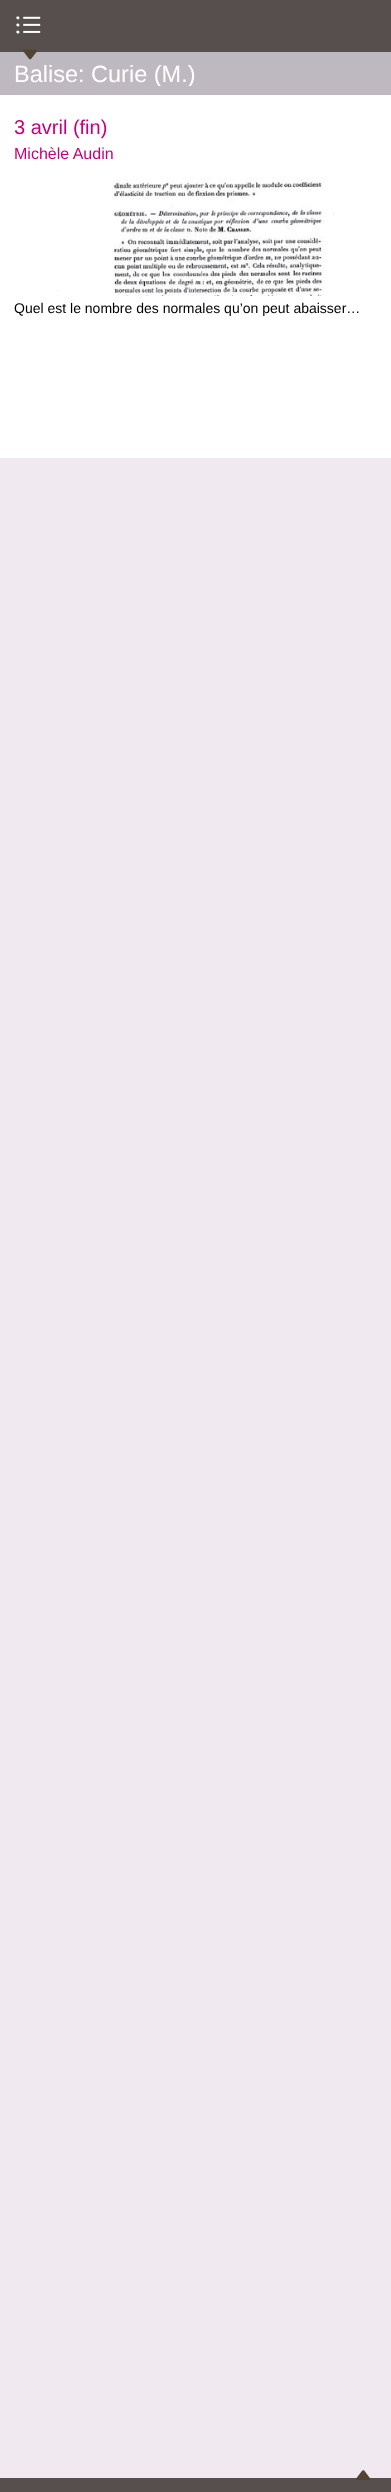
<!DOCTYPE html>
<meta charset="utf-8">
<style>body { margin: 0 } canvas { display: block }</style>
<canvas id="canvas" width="391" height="2492"></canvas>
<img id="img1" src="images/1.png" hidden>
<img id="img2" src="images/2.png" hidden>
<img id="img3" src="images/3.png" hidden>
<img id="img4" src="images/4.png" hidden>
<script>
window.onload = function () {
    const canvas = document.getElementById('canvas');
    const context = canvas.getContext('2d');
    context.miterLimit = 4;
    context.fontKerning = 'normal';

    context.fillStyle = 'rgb(240, 234, 240)';
    context.fillRect(0, 0, 391, 2492);
    context.fillStyle = 'rgb(87, 78, 78)';
    context.fillRect(0, 0, 391, 52);
    context.drawImage(document.getElementById('img1'), 16, 16, 25, 18);
    context.fillStyle = 'rgb(190, 184, 192)';
    context.fillRect(0, 52, 391, 43);
    context.drawImage(document.getElementById('img2'), 23, 49, 15, 11);
    context.fillStyle = 'rgb(255, 255, 255)';
    context.fillRect(0, 95, 391, 363);
    context.drawImage(document.getElementById('img3'), 57, 177, 278, 119);
    context.fillStyle = 'rgb(87, 78, 78)';
    context.fillRect(0, 2478, 391, 14);
    context.drawImage(document.getElementById('img4'), 356, 2470, 15, 10);
    context.save();
    context.beginPath();
    context.rect(14, 62, 355, 24);
    context.clip();
    context.font = '23.5px Liberation Sans';
    context.fillStyle = 'rgb(255, 255, 255)';
    context.fillText('Balise: Curie (M.)', 14, 82);
    context.restore();
    context.font = '20px Liberation Sans';
    context.fillStyle = 'rgb(200, 0, 120)';
    context.fillText('3 avril (fin)', 14, 134);
    context.font = '16px Liberation Sans';
    context.fillText('Michèle Audin', 14, 159);
    context.font = '14px Liberation Sans';
    context.fillStyle = 'rgb(0, 0, 0)';
    context.fillText('Quel est le nombre des normales qu’on peut abaisser…', 14, 313);
};
</script>
